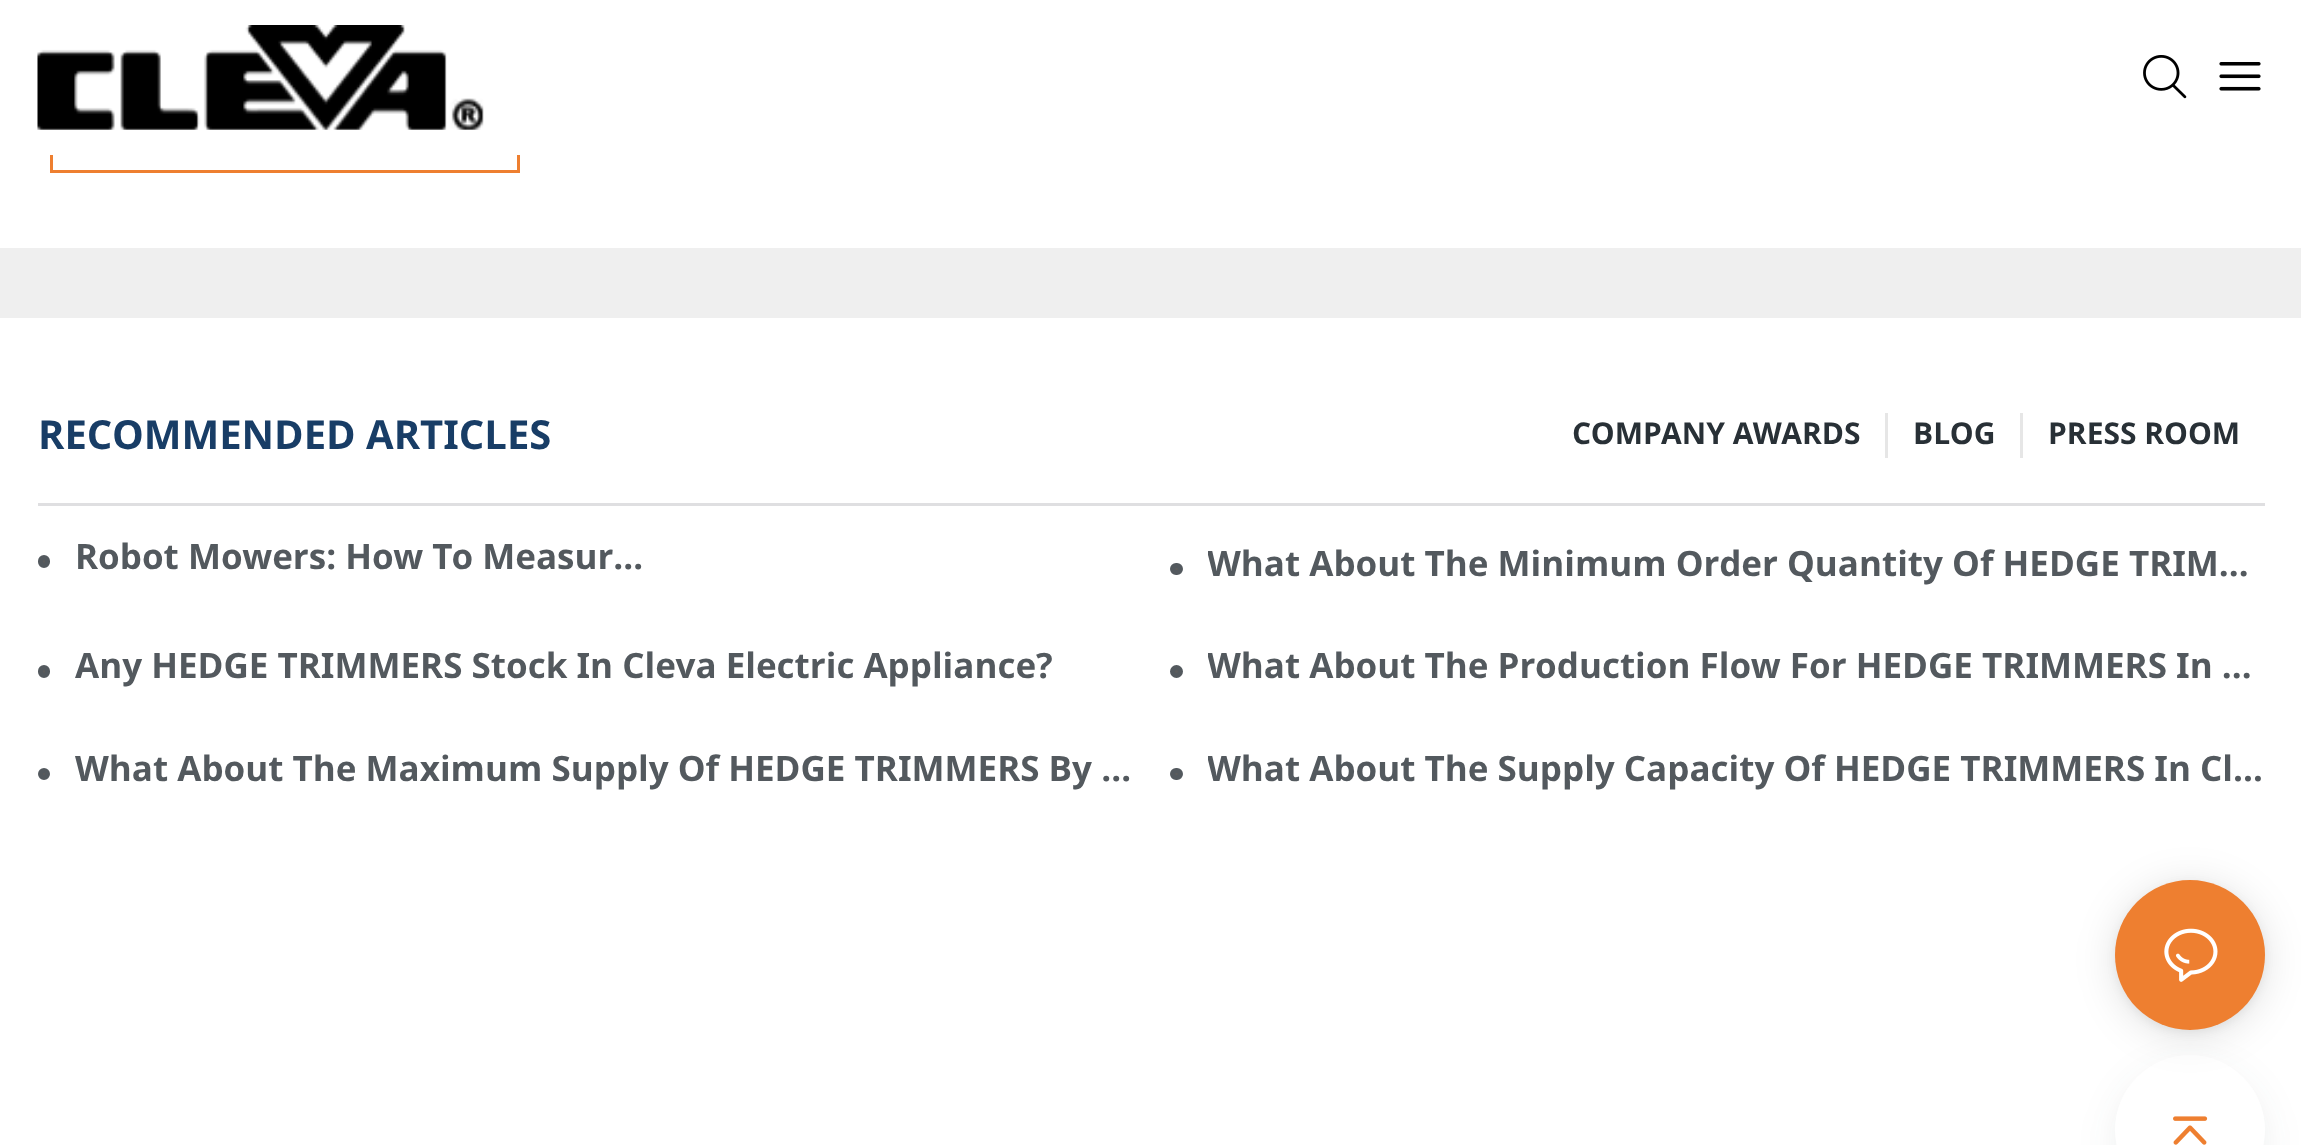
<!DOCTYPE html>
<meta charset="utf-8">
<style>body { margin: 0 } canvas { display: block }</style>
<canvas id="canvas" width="2301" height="1145"></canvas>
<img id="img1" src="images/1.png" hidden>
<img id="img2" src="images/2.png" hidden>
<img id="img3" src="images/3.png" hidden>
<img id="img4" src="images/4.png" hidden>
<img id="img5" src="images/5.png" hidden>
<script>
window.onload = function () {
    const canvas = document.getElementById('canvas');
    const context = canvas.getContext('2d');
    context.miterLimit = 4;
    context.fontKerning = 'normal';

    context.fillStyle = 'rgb(255, 255, 255)';
    context.fillRect(0, 0, 2301, 1145);
    context.strokeStyle = 'rgb(238, 127, 48)';
    context.lineWidth = 3;
    context.strokeRect(51.5, 59.5, 467, 112);
    context.fillRect(50, 58, 470, 97);
    context.drawImage(document.getElementById('img1'), 37, 25, 447, 105);
    context.drawImage(document.getElementById('img2'), 2143, 55, 44, 44);
    context.drawImage(document.getElementById('img3'), 2219, 62, 42, 29);
    context.fillStyle = 'rgb(239, 239, 239)';
    context.fillRect(0, 248, 2301, 70);
    context.fillStyle = 'rgb(223, 223, 225)';
    context.fillRect(38, 503, 2227, 3);
    context.fillStyle = 'rgb(230, 230, 230)';
    context.fillRect(1885, 413, 3, 45);
    context.fillRect(2020, 413, 3, 45);
    context.fillStyle = 'rgb(92, 92, 92)';
    context.beginPath();
    context.roundRect(40.5, 557.5, 7, 8, 3.5);
    context.fill();
    context.strokeStyle = 'rgb(83, 89, 94)';
    context.lineWidth = 5;
    context.stroke();
    context.beginPath();
    context.roundRect(1172.5, 565.5, 8, 7, 3.5);
    context.fill();
    context.stroke();
    context.beginPath();
    context.roundRect(40.5, 667.5, 7, 8, 3.5);
    context.fill();
    context.stroke();
    context.beginPath();
    context.arc(1176.5, 671.5, 4, 0, 2 * Math.PI);
    context.fill();
    context.stroke();
    context.beginPath();
    context.arc(44, 774, 3.5, 0, 2 * Math.PI);
    context.fill();
    context.stroke();
    context.beginPath();
    context.roundRect(1172.5, 770.5, 8, 7, 3.5);
    context.fill();
    context.stroke();
    context.fillStyle = 'rgba(40, 47, 54, 0.08)';
    context.filter = 'blur(19px)';
    context.beginPath();
    context.roundRect(2115, 1068, 150, 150, 75);
    context.fill();
    context.filter = 'none';
    context.fillStyle = 'rgb(255, 255, 255)';
    context.beginPath();
    context.arc(2190, 1130, 75, 0, 2 * Math.PI);
    context.fill();
    context.fillStyle = 'rgba(0, 0, 0, 0.12)';
    context.filter = 'blur(20px)';
    context.beginPath();
    context.roundRect(2115, 885, 150, 150, 75);
    context.fill();
    context.filter = 'none';
    context.fillStyle = 'rgba(0, 0, 0, 0.06)';
    context.filter = 'blur(5px)';
    context.beginPath();
    context.roundRect(2115, 883, 150, 150, 75);
    context.fill();
    context.filter = 'none';
    context.fillStyle = 'rgb(238, 127, 48)';
    context.beginPath();
    context.arc(2190, 955, 75, 0, 2 * Math.PI);
    context.fill();
    context.drawImage(document.getElementById('img4'), 2164, 928, 54, 54);
    context.drawImage(document.getElementById('img5'), 2173, 1116, 35, 29);
    context.font = 'bold 40px Noto Sans';
    context.fillStyle = 'rgb(24, 61, 102)';
    context.fillText('RECOMMENDED ARTICLES', 38, 449);
    context.font = 'bold 30px Noto Sans';
    context.fillStyle = 'rgb(40, 48, 54)';
    context.fillText('COMPANY AWARDS', 1572, 444);
    context.fillText('BLOG', 1913, 444);
    context.fillText('PRESS ROOM', 2048, 444);
    context.font = 'bold 35px Noto Sans';
    context.fillStyle = 'rgb(83, 89, 94)';
    context.fillText('Robot Mowers: How To Measur…', 75, 569);
    context.save();
    context.beginPath();
    context.rect(1208, 535, 1057, 53);
    context.clip();
    context.fillText('What About The Minimum Order Quantity Of HEDGE TRIM…', 1207, 576);
    context.restore();
    context.fillText('Any HEDGE TRIMMERS Stock In Cleva Electric Appliance?', 75, 678);
    context.save();
    context.beginPath();
    context.rect(1208, 638, 1057, 52);
    context.clip();
    context.fillText('What About The Production Flow For HEDGE TRIMMERS In …', 1207, 678);
    context.restore();
    context.fillText('What About The Maximum Supply Of HEDGE TRIMMERS By …', 75, 781);
    context.save();
    context.beginPath();
    context.rect(1208, 740, 1057, 53);
    context.clip();
    context.fillText('What About The Supply Capacity Of HEDGE TRIMMERS In Cl…', 1207, 781);
    context.restore();
};
</script>
